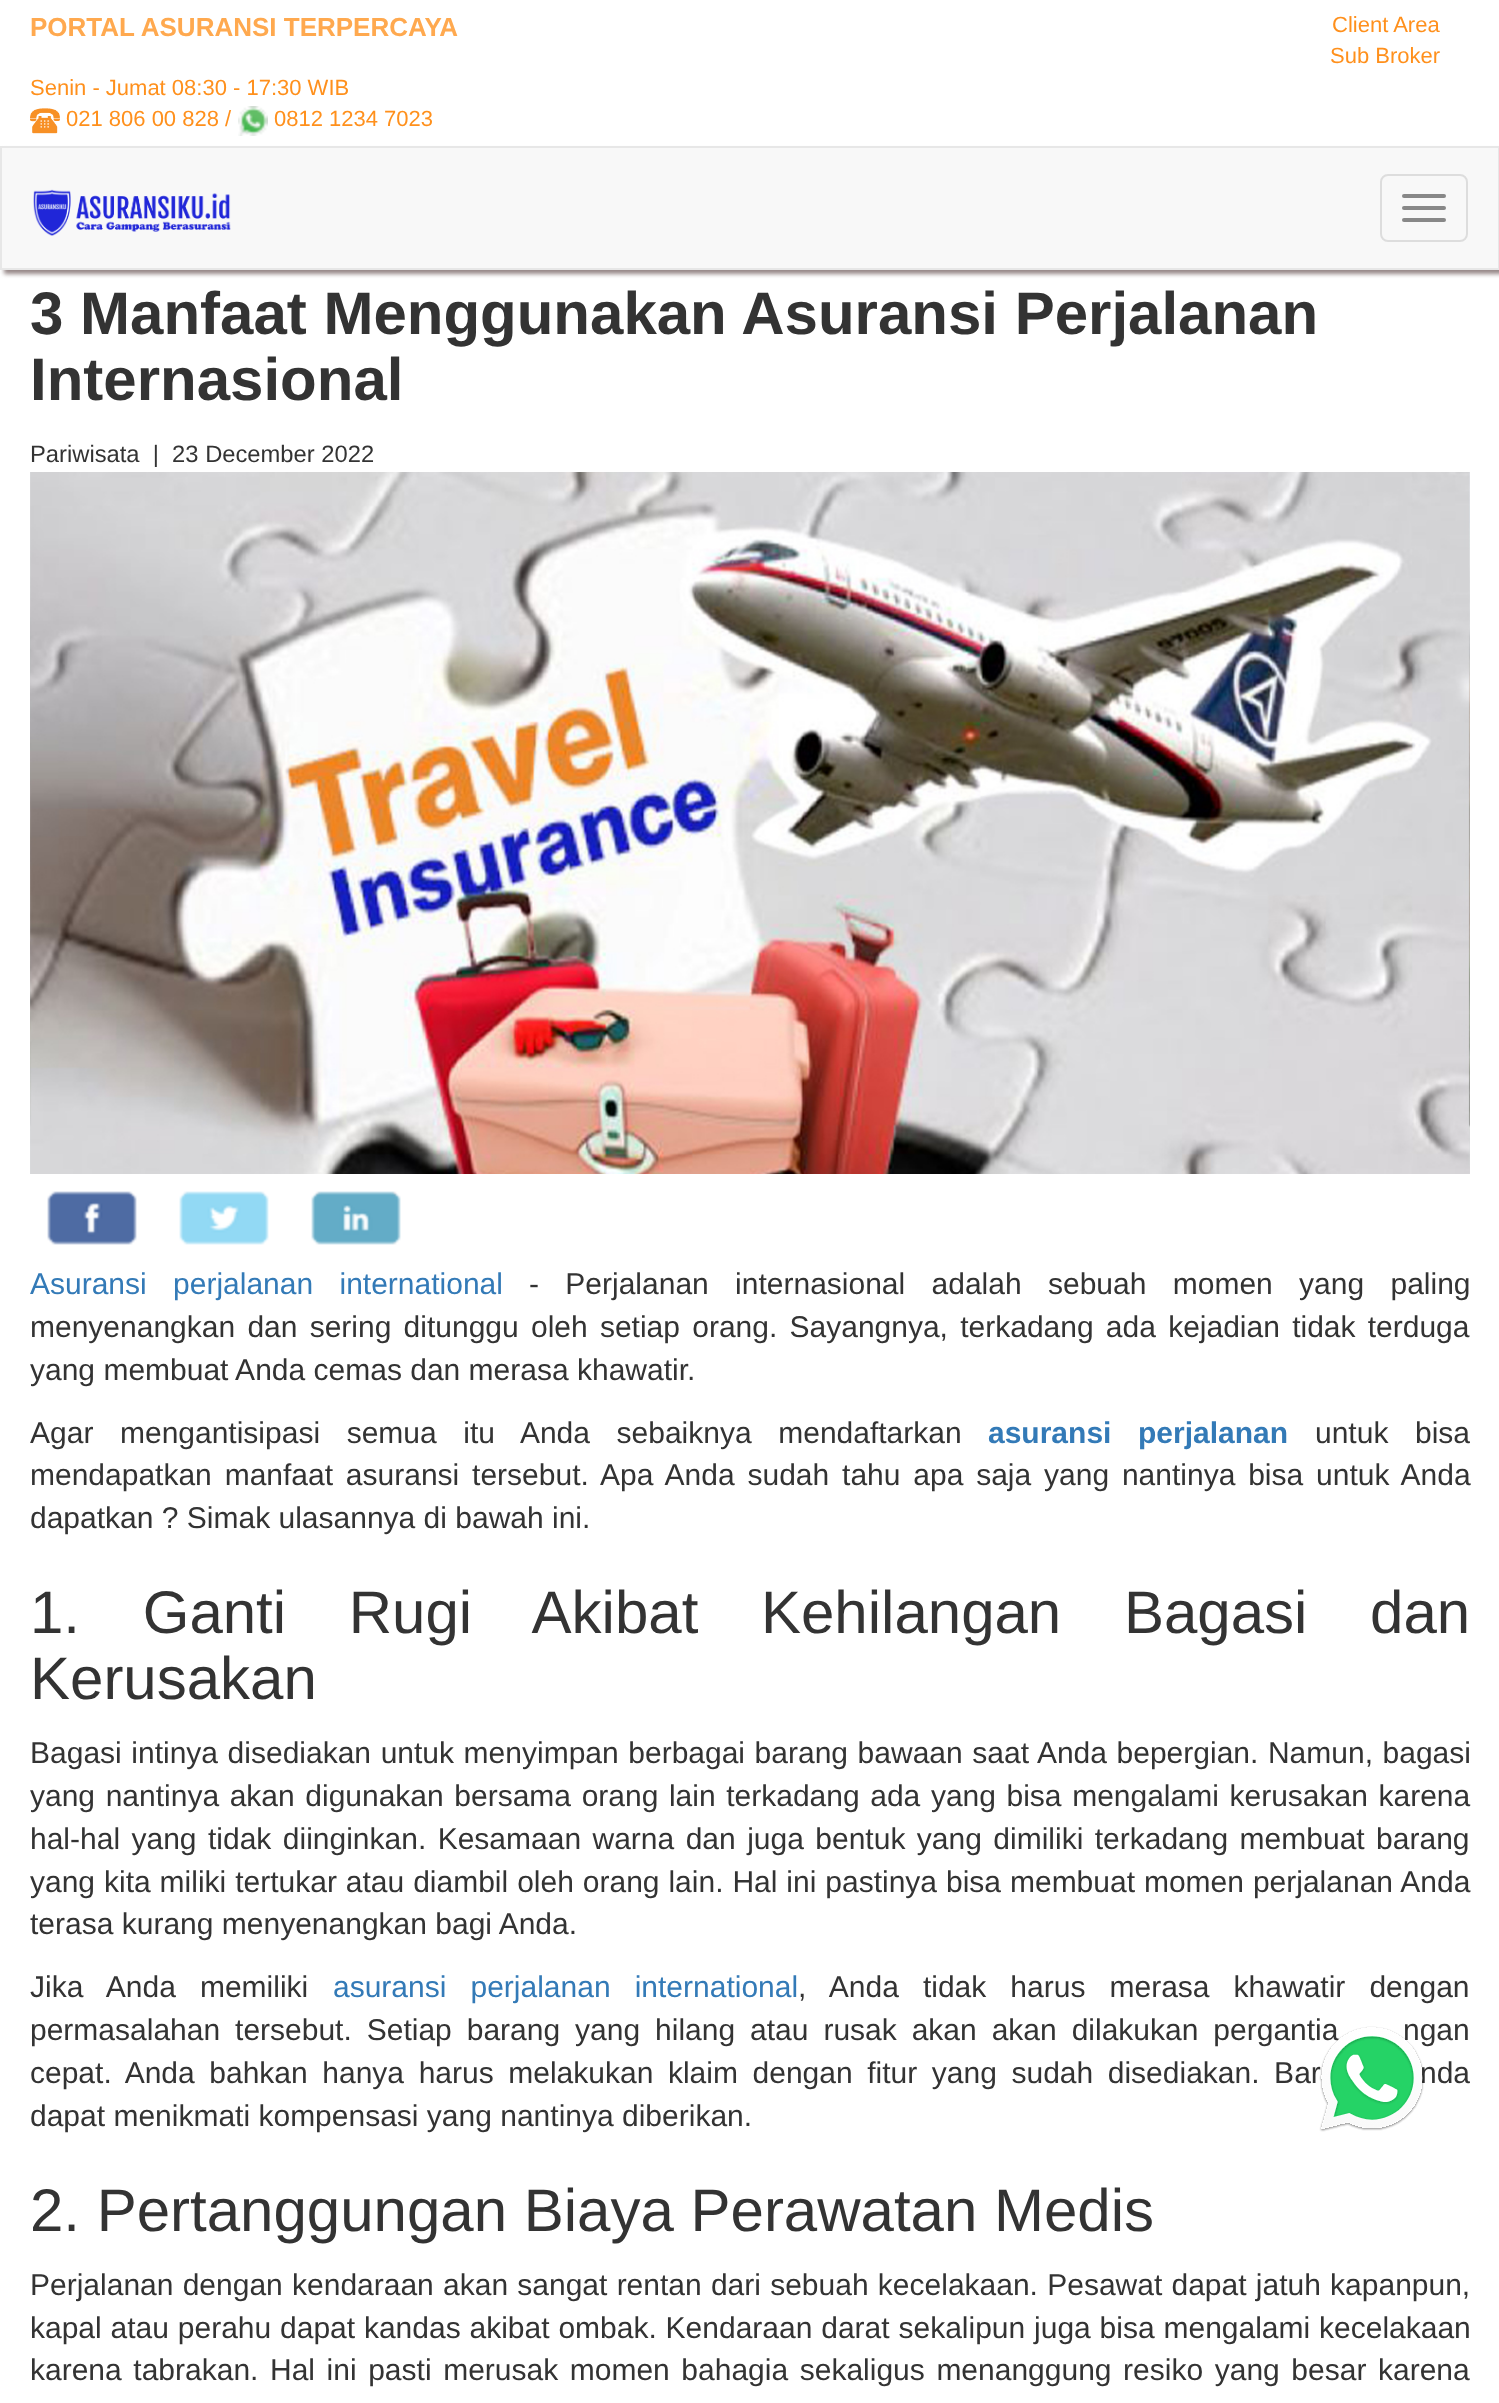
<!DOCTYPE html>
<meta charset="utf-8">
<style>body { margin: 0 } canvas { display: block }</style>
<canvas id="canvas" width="1499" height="2403"></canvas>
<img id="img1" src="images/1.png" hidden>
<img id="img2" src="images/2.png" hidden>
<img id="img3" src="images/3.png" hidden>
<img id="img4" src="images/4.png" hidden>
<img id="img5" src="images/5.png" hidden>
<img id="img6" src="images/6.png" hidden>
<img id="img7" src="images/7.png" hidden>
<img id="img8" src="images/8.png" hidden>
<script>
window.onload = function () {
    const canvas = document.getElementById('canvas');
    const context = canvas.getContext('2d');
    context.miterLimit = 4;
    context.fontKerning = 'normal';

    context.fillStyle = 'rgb(255, 255, 255)';
    context.fillRect(0, 0, 1499, 2403);
    context.drawImage(document.getElementById('img1'), 30, 108, 30, 26);
    context.drawImage(document.getElementById('img2'), 238, 106, 30, 30);
    context.fillStyle = 'rgb(150, 135, 135)';
    context.filter = 'blur(2px)';
    context.beginPath();
    context.rect(4, 150, 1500, 124);
    context.fill();
    context.filter = 'none';
    context.fillStyle = 'rgb(248, 248, 248)';
    context.beginPath();
    context.rect(1, 147, 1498, 122);
    context.fill();
    context.strokeStyle = 'rgb(231, 231, 231)';
    context.lineWidth = 2;
    context.stroke();
    context.drawImage(document.getElementById('img3'), 33, 189, 198, 47);
    context.beginPath();
    context.roundRect(1381, 175, 86, 66, 7);
    context.strokeStyle = 'rgb(221, 221, 221)';
    context.stroke();
    context.fillStyle = 'rgb(136, 136, 136)';
    context.beginPath();
    context.roundRect(1402, 194, 44, 4, 2);
    context.fill();
    context.beginPath();
    context.roundRect(1402, 206, 44, 4, 2);
    context.fill();
    context.beginPath();
    context.roundRect(1402, 218, 44, 4, 2);
    context.fill();
    context.drawImage(document.getElementById('img4'), 30, 472, 1440, 702);
    context.drawImage(document.getElementById('img5'), 47, 1191, 90, 54);
    context.drawImage(document.getElementById('img6'), 179, 1191, 90, 54);
    context.drawImage(document.getElementById('img7'), 311, 1191, 90, 54);
    context.font = 'bold 26px Liberation Sans';
    context.fillStyle = 'rgb(255, 169, 79)';
    context.fillText('PORTAL ASURANSI TERPERCAYA', 30, 36);
    context.font = '22px Liberation Sans';
    context.fillStyle = 'rgb(255, 144, 28)';
    context.fillText('Client Area', 1332, 32);
    context.fillText('Sub Broker', 1330, 63);
    context.fillText('Senin - Jumat 08:30 - 17:30 WIB', 30, 95);
    context.fillText('021 806 00 828 /', 66, 126);
    context.fillText('0812 1234 7023', 274, 126);
    context.font = 'bold 60px Liberation Sans';
    context.fillStyle = 'rgb(51, 51, 51)';
    context.fillText('3 Manfaat Menggunakan Asuransi Perjalanan', 30, 334);
    context.fillText('Internasional', 30, 400);
    context.font = '23.75px Liberation Sans';
    context.fillText('Pariwisata  |  23 December 2022', 30, 462);
    context.wordSpacing = '18px';
    context.font = '30px Liberation Sans';
    context.fillStyle = 'rgb(51, 122, 183)';
    context.fillText('Asuransi perjalanan international', 30, 1294);
    context.fillStyle = 'rgb(51, 51, 51)';
    context.fillText('- Perjalanan internasional adalah sebuah momen yang paling', 529, 1294);
    context.wordSpacing = '3.9px';
    context.fillText('menyenangkan dan sering ditunggu oleh setiap orang. Sayangnya, terkadang ada kejadian tidak terduga', 30, 1337);
    context.wordSpacing = '0px';
    context.fillText('yang membuat Anda cemas dan merasa khawatir.', 30, 1380);
    context.wordSpacing = '18.25px';
    context.fillText('Agar mengantisipasi semua itu Anda sebaiknya mendaftarkan', 30, 1443);
    context.font = 'bold 30px Liberation Sans';
    context.fillStyle = 'rgb(51, 122, 183)';
    context.fillText('asuransi perjalanan', 988, 1443);
    context.font = '30px Liberation Sans';
    context.fillStyle = 'rgb(51, 51, 51)';
    context.fillText('untuk bisa', 1315, 1443);
    context.wordSpacing = '4.5px';
    context.fillText('mendapatkan manfaat asuransi tersebut. Apa Anda sudah tahu apa saja yang nantinya bisa untuk Anda', 30, 1485);
    context.wordSpacing = '0px';
    context.fillText('dapatkan ? Simak ulasannya di bawah ini.', 30, 1528);
    context.wordSpacing = '46px';
    context.font = '60px Liberation Sans';
    context.fillText('1. Ganti Rugi Akibat Kehilangan Bagasi dan', 30, 1633);
    context.wordSpacing = '0px';
    context.fillText('Kerusakan', 30, 1699);
    context.wordSpacing = '1.25px';
    context.font = '30px Liberation Sans';
    context.fillText('Bagasi intinya disediakan untuk menyimpan berbagai barang bawaan saat Anda bepergian. Namun, bagasi', 30, 1763);
    context.wordSpacing = '2.25px';
    context.fillText('yang nantinya akan digunakan bersama orang lain terkadang ada yang bisa mengalami kerusakan karena', 30, 1806);
    context.wordSpacing = '3.1px';
    context.fillText('hal-hal yang tidak diinginkan. Kesamaan warna dan juga bentuk yang dimiliki terkadang membuat barang', 30, 1849);
    context.wordSpacing = '0.6px';
    context.fillText('yang kita miliki tertukar atau diambil oleh orang lain. Hal ini pastinya bisa membuat momen perjalanan Anda', 30, 1892);
    context.wordSpacing = '0px';
    context.fillText('terasa kurang menyenangkan bagi Anda.', 30, 1934);
    context.wordSpacing = '15.75px';
    context.fillText('Jika Anda memiliki', 30, 1997);
    context.fillStyle = 'rgb(51, 122, 183)';
    context.fillText('asuransi perjalanan international', 333, 1997);
    context.fillStyle = 'rgb(51, 51, 51)';
    context.fillText(', Anda tidak harus merasa khawatir dengan', 798, 1997);
    context.wordSpacing = '6.6px';
    context.fillText('permasalahan tersebut. Setiap barang yang hilang atau rusak akan akan dilakukan pergantia', 30, 2040);
    context.fillText('ngan', 1403, 2040);
    context.wordSpacing = '6.25px';
    context.fillText('cepat. Anda bahkan hanya harus melakukan klaim dengan fitur yang sudah disediakan. Bar', 30, 2083);
    context.fillText('nda', 1420, 2083);
    context.wordSpacing = '0px';
    context.fillText('dapat menikmati kompensasi yang nantinya diberikan.', 30, 2126);
    context.font = '60px Liberation Sans';
    context.fillText('2. Pertanggungan Biaya Perawatan Medis', 30, 2231);
    context.wordSpacing = '0.9px';
    context.font = '30px Liberation Sans';
    context.fillText('Perjalanan dengan kendaraan akan sangat rentan dari sebuah kecelakaan. Pesawat dapat jatuh kapanpun,', 30, 2295);
    context.wordSpacing = '0.5px';
    context.fillText('kapal atau perahu dapat kandas akibat ombak. Kendaraan darat sekalipun juga bisa mengalami kecelakaan', 30, 2338);
    context.wordSpacing = '3.25px';
    context.fillText('karena tabrakan. Hal ini pasti merusak momen bahagia sekaligus menanggung resiko yang besar karena', 30, 2380);
    context.drawImage(document.getElementById('img8'), 1319, 2026, 106, 106);
};
</script>
